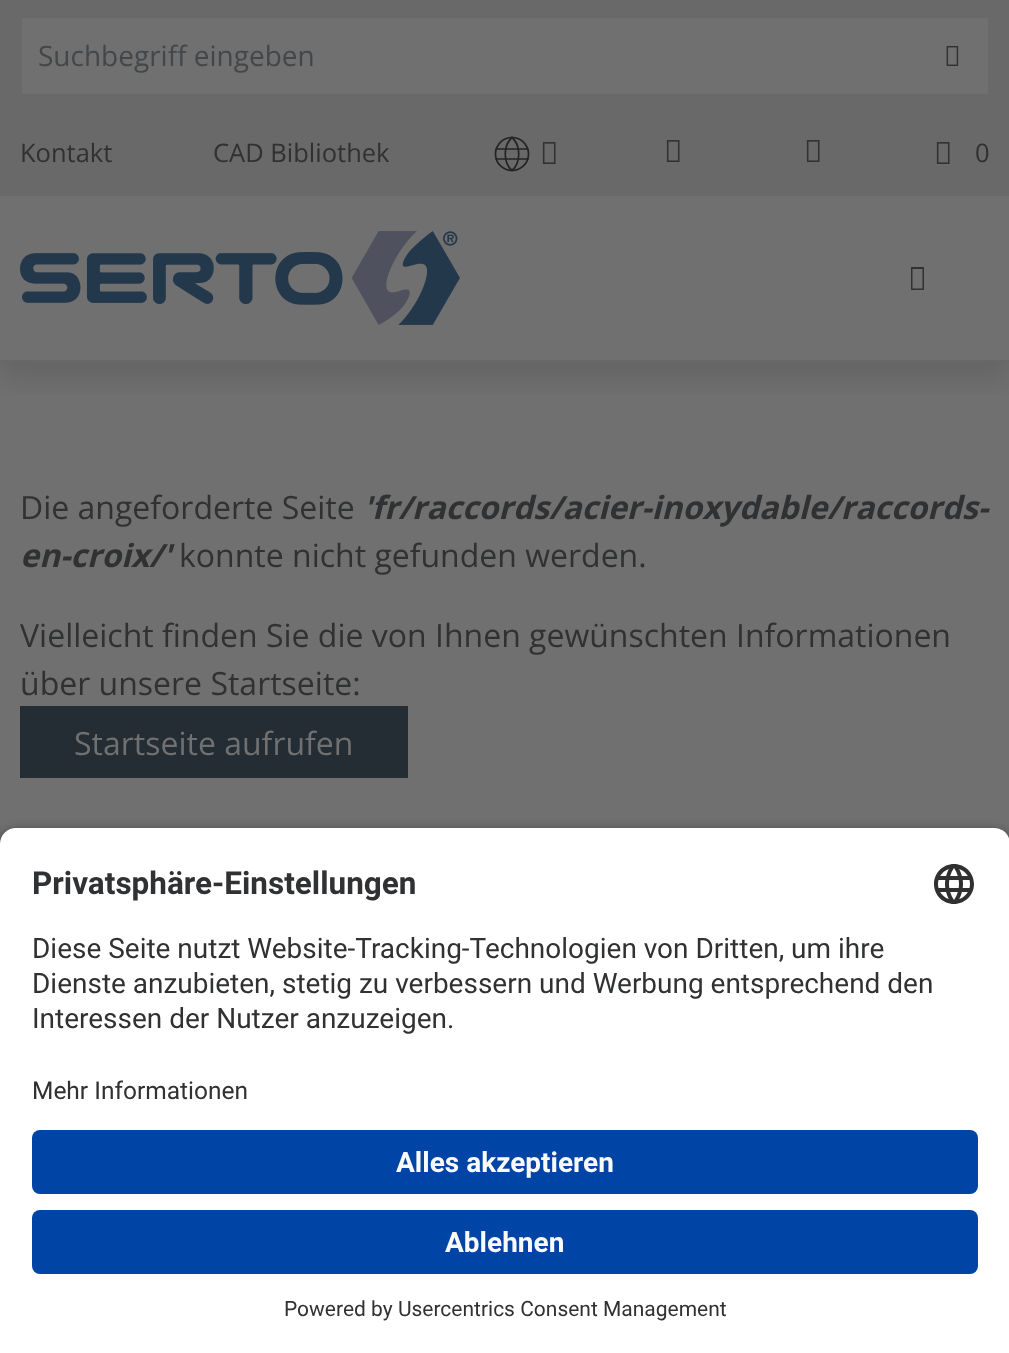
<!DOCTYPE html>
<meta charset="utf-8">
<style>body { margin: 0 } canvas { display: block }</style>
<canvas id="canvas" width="1009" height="1353"></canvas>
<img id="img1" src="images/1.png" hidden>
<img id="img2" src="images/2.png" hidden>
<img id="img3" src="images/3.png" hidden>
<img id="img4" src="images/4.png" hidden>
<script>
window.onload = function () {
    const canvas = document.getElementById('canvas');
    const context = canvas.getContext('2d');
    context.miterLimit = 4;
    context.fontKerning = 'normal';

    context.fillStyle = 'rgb(112, 112, 112)';
    context.fillRect(0, 0, 1009, 1353);
    context.save();
    context.beginPath();
    context.rect(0, 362, 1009, 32);
    context.clip();
    context.fillStyle = 'rgba(36, 36, 36, 0.16)';
    context.filter = 'blur(14px)';
    context.beginPath();
    context.rect(0, 16, 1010, 362);
    context.fill();
    context.filter = 'none';
    context.restore();
    context.fillStyle = 'rgb(102, 104, 105)';
    context.fillRect(0, 360, 1009, 2);
    context.fillStyle = 'rgb(105, 105, 106)';
    context.fillRect(0, 0, 1009, 196);
    context.fillStyle = 'rgb(112, 112, 112)';
    context.fillRect(22, 18, 966, 76);
    context.drawImage(document.getElementById('img1'), 946, 46, 13, 20);
    context.beginPath();
    context.arc(512, 154, 16.5, 0, 2 * Math.PI);
    context.strokeStyle = 'rgb(36, 36, 36)';
    context.lineWidth = 1.7;
    context.stroke();
    context.beginPath();
    context.moveTo(512, 170.5);
    context.bezierCurveTo(521, 162.5, 521, 145.5, 512, 137.5);
    context.bezierCurveTo(503, 145.5, 503, 162.5, 512, 170.5);
    context.closePath();
    context.moveTo(496, 149);
    context.lineTo(528, 149);
    context.moveTo(496, 159);
    context.lineTo(528, 159);
    context.lineCap = 'round';
    context.stroke();
    context.drawImage(document.getElementById('img2'), 542, 142, 14, 22);
    context.drawImage(document.getElementById('img2'), 666, 140, 14, 22);
    context.drawImage(document.getElementById('img2'), 806, 140, 14, 22);
    context.drawImage(document.getElementById('img2'), 936, 142, 14, 22);
    context.drawImage(document.getElementById('img3'), 20, 231, 440, 94);
    context.fillStyle = 'rgb(48, 49, 50)';
    context.beginPath();
    context.moveTo(911, 290);
    context.lineTo(911, 267);
    context.lineTo(924, 267);
    context.lineTo(924, 290);
    context.closePath();
    context.moveTo(912.5, 288.5);
    context.lineTo(922.5, 288.5);
    context.lineTo(922.5, 269);
    context.lineTo(912.5, 269);
    context.closePath();
    context.fill();
    context.fillStyle = 'rgb(36, 44, 52)';
    context.fillRect(20, 706, 388, 72);
    context.fillStyle = 'rgba(0, 0, 0, 0.8)';
    context.filter = 'blur(7px)';
    context.beginPath();
    context.roundRect(0, 834, 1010, 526, 16);
    context.fill();
    context.filter = 'none';
    context.fillStyle = 'rgb(255, 255, 255)';
    context.beginPath();
    context.moveTo(16, 828);
    context.lineTo(994, 828);
    context.bezierCurveTo(1003, 828, 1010, 835, 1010, 844);
    context.lineTo(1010, 1078);
    context.lineTo(0, 1078);
    context.lineTo(0, 844);
    context.bezierCurveTo(0, 835, 7, 828, 16, 828);
    context.closePath();
    context.fill();
    context.drawImage(document.getElementById('img4'), 934, 864, 40, 40);
    context.fillRect(0, 1078, 1009, 275);
    context.fillStyle = 'rgb(0, 69, 165)';
    context.beginPath();
    context.roundRect(32, 1130, 946, 64, 8);
    context.fill();
    context.beginPath();
    context.roundRect(32, 1210, 946, 64, 8);
    context.fill();
    context.font = '28px Open Sans';
    context.fillStyle = 'rgb(68, 71, 73)';
    context.fillText('Suchbegriff eingeben', 38, 66);
    context.font = '25.5px Open Sans';
    context.fillStyle = 'rgb(48, 49, 50)';
    context.fillText('Kontakt', 20, 162);
    context.fillText('CAD Bibliothek', 213, 162);
    context.fillText('0', 975, 162);
    context.font = '32px Open Sans';
    context.fillText('Die angeforderte Seite', 20, 519);
    context.font = 'italic bold 32px Open Sans';
    context.fillText('\'fr/raccords/acier-inoxydable/raccords-', 363, 519);
    context.fillText('en-croix/\'', 20, 567);
    context.font = '32px Open Sans';
    context.fillText('konnte nicht gefunden werden.', 179, 567);
    context.fillText('Vielleicht finden Sie die von Ihnen gewünschten Informationen', 20, 647);
    context.fillText('über unsere Startseite:', 20, 695);
    context.fillStyle = 'rgb(112, 112, 112)';
    context.fillText('Startseite aufrufen', 74, 755);
    context.font = 'bold 31.5px Roboto';
    context.fillStyle = 'rgb(48, 49, 50)';
    context.fillText('Privatsphäre-Einstellungen', 32, 894);
    context.font = '28px Roboto';
    context.fillText('Diese Seite nutzt Website-Tracking-Technologien von Dritten, um ihre', 32, 958);
    context.fillText('Dienste anzubieten, stetig zu verbessern und Werbung entsprechend den', 32, 993);
    context.fillText('Interessen der Nutzer anzuzeigen.', 32, 1028);
    context.font = '24.5px Roboto';
    context.fillText('Mehr Informationen', 32, 1099);
    context.font = 'bold 28px Roboto';
    context.fillStyle = 'rgb(250, 250, 250)';
    context.fillText('Alles akzeptieren', 396, 1172);
    context.fillText('Ablehnen', 445, 1252);
    context.font = '21px Roboto';
    context.fillStyle = 'rgb(48, 49, 50)';
    context.fillText('Powered by Usercentrics Consent Management', 284, 1316);
};
</script>
